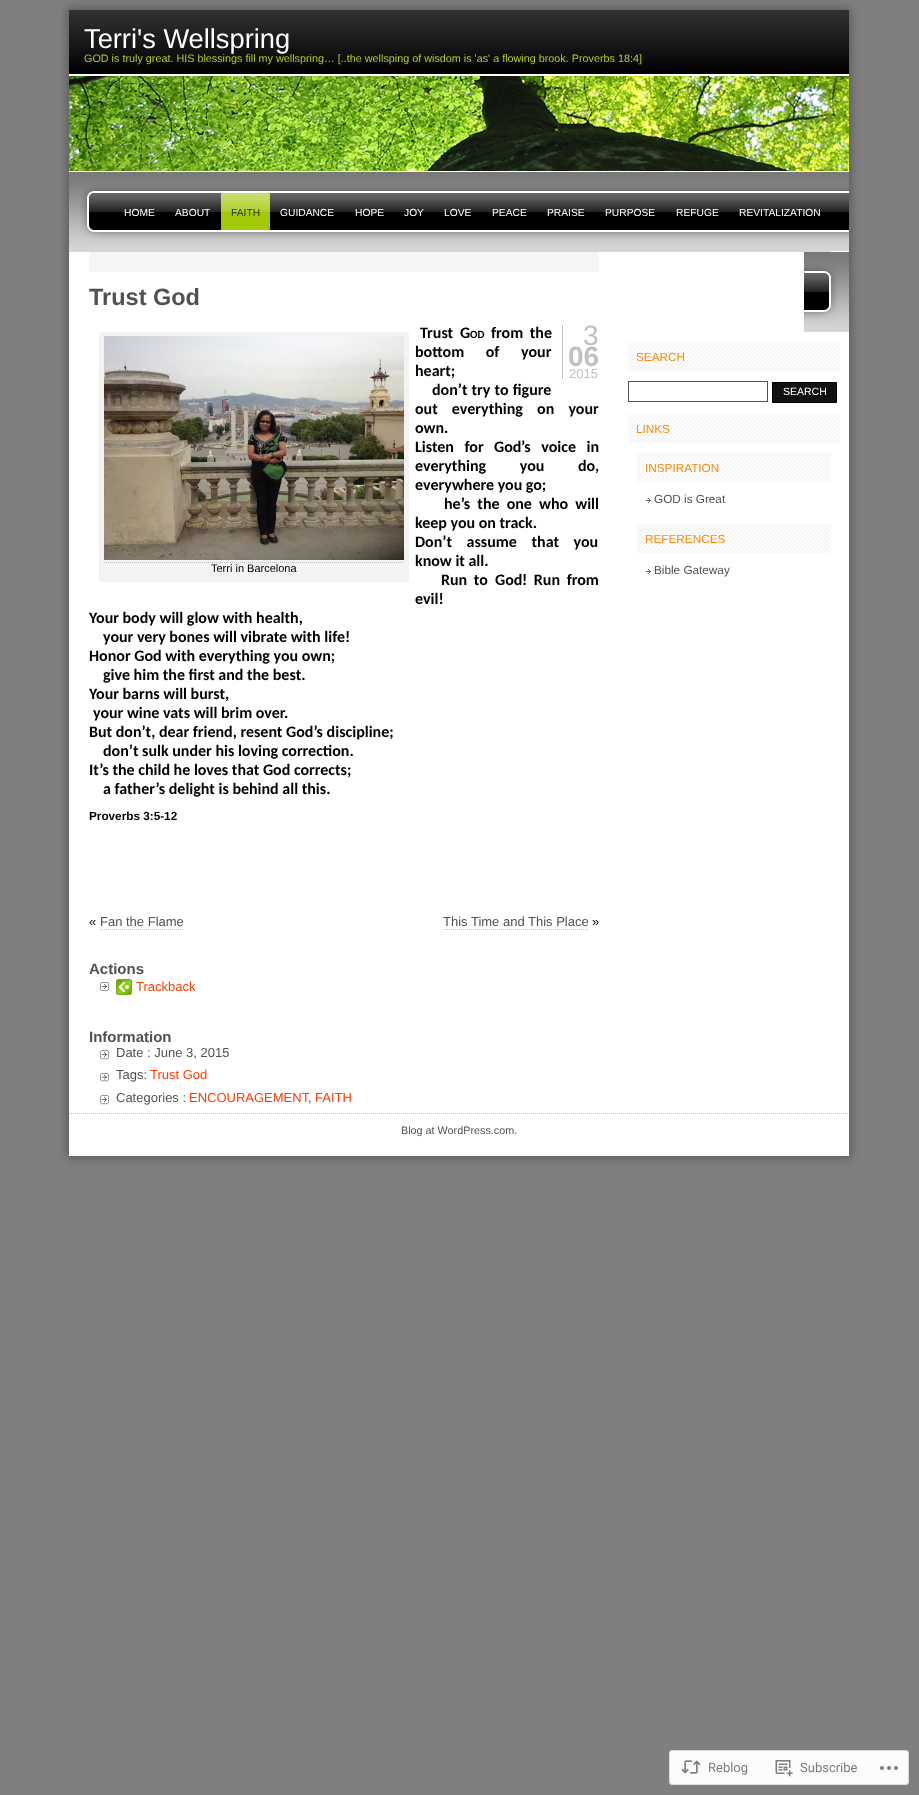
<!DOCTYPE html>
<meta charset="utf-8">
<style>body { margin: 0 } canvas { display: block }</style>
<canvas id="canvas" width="919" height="1795"></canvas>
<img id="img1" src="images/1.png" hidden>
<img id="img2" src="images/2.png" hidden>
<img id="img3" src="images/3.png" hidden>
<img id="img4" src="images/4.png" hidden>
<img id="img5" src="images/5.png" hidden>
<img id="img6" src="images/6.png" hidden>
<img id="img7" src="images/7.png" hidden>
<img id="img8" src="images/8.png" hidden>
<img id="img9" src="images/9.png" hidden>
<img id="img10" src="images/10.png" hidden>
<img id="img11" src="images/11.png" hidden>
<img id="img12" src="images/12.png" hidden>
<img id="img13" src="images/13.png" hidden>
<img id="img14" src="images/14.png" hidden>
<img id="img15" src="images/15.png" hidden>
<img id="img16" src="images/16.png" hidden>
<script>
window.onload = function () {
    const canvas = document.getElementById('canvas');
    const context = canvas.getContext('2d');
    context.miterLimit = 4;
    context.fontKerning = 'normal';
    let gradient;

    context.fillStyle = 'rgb(127, 127, 127)';
    context.fillRect(0, 0, 919, 1795);
    context.fillStyle = 'rgb(90, 90, 90)';
    context.filter = 'blur(5px)';
    context.beginPath();
    context.rect(67, 8, 784, 1150);
    context.fill();
    context.filter = 'none';
    gradient = context.createLinearGradient(459, 10, 459, 74);
    gradient.addColorStop(0, 'rgb(50, 50, 50)');
    gradient.addColorStop(1, 'rgb(0, 0, 0)');
    context.fillStyle = gradient;
    context.fillRect(69, 10, 780, 64);
    context.fillStyle = 'rgb(255, 255, 255)';
    context.fillRect(69, 74, 780, 2);
    context.drawImage(document.getElementById('img1'), 69, 76, 780, 95);
    context.fillRect(69, 251, 780, 905);
    context.drawImage(document.getElementById('img2'), 69, 172, 780, 79);
    context.fillRect(69, 171, 780, 1);
    context.drawImage(document.getElementById('img3'), 69, 185, 45, 67);
    context.fillStyle = 'rgb(215, 215, 215)';
    context.fillRect(114, 251, 107, 1);
    context.drawImage(document.getElementById('img4'), 221, 172, 49, 80);
    context.fillRect(270, 251, 561, 1);
    context.drawImage(document.getElementById('img5'), 804, 252, 45, 80);
    context.fillStyle = 'rgb(245, 245, 245)';
    context.fillRect(89, 252, 510, 20);
    context.fillStyle = 'rgb(192, 192, 192)';
    context.fillRect(562, 325, 1, 54);
    context.fillStyle = 'rgb(243, 243, 243)';
    context.beginPath();
    context.roundRect(99, 332, 310, 250, 3);
    context.fill();
    context.drawImage(document.getElementById('img6'), 104, 336, 300, 224);
    context.beginPath();
    context.moveTo(104, 562.5);
    context.lineTo(404, 562.5);
    context.strokeStyle = 'rgb(192, 192, 192)';
    context.setLineDash([1, 1]);
    context.stroke();
    context.beginPath();
    context.moveTo(100, 929.5);
    context.lineTo(183, 929.5);
    context.stroke();
    context.beginPath();
    context.moveTo(443, 929.5);
    context.lineTo(588, 929.5);
    context.stroke();
    context.drawImage(document.getElementById('img7'), 100, 982, 9, 9);
    context.drawImage(document.getElementById('img8'), 116, 979, 16, 16);
    context.drawImage(document.getElementById('img9'), 100, 1050, 9, 10);
    context.drawImage(document.getElementById('img10'), 100, 1073, 9, 9);
    context.drawImage(document.getElementById('img9'), 100, 1095, 9, 10);
    context.drawImage(document.getElementById('img11'), 628, 342, 212, 29);
    context.strokeStyle = 'rgb(81, 81, 81)';
    context.setLineDash([]);
    context.strokeRect(628.5, 381.5, 139, 20);
    context.fillStyle = 'rgb(17, 17, 17)';
    context.beginPath();
    context.rect(772.5, 382.5, 64, 20);
    context.fill();
    context.strokeStyle = 'rgb(0, 0, 0)';
    context.stroke();
    context.drawImage(document.getElementById('img11'), 628, 414, 212, 29);
    context.drawImage(document.getElementById('img12'), 637, 453, 194, 29);
    context.drawImage(document.getElementById('img13'), 646, 498, 5, 5);
    context.drawImage(document.getElementById('img12'), 637, 524, 194, 29);
    context.drawImage(document.getElementById('img13'), 646, 569, 5, 5);
    context.beginPath();
    context.moveTo(69, 1113.5);
    context.lineTo(849, 1113.5);
    context.strokeStyle = 'rgb(192, 192, 192)';
    context.setLineDash([1, 1]);
    context.stroke();
    context.fillStyle = 'rgb(252, 252, 252)';
    context.beginPath();
    context.roundRect(669.5, 1750.5, 239, 34, 2.5);
    context.fill();
    context.strokeStyle = 'rgb(218, 218, 220)';
    context.setLineDash([]);
    context.stroke();
    context.drawImage(document.getElementById('img14'), 681, 1760, 20, 14);
    context.drawImage(document.getElementById('img15'), 775, 1760, 18, 17);
    context.drawImage(document.getElementById('img16'), 880, 1766, 18, 4);
    context.font = '27.25px Liberation Sans';
    context.fillStyle = 'rgb(255, 255, 255)';
    context.fillText('Terri\'s Wellspring', 84, 48);
    context.font = '10.8px Liberation Sans';
    context.fillStyle = 'rgb(173, 207, 32)';
    context.fillText('GOD is truly great. HIS blessings fill my wellspring… [..the wellsping of wisdom is \'as\' a flowing brook. Proverbs 18:4]', 84, 62);
    context.font = '10.25px Liberation Sans';
    context.fillStyle = 'rgb(255, 255, 255)';
    context.fillText('HOME', 124, 216);
    context.fillText('ABOUT', 175, 216);
    context.fillStyle = 'rgb(31, 55, 0)';
    context.fillText('FAITH', 231, 216);
    context.fillStyle = 'rgb(255, 255, 255)';
    context.fillText('GUIDANCE', 280, 216);
    context.fillText('HOPE', 355, 216);
    context.fillText('JOY', 404, 216);
    context.fillText('LOVE', 444, 216);
    context.fillText('PEACE', 492, 216);
    context.fillText('PRAISE', 547, 216);
    context.fillText('PURPOSE', 605, 216);
    context.fillText('REFUGE', 676, 216);
    context.fillText('REVITALIZATION', 739, 216);
    context.font = 'bold 23.5px Liberation Sans';
    context.fillStyle = 'rgb(81, 81, 81)';
    context.fillText('Trust God', 89, 305);
    context.font = '28px Liberation Sans';
    context.fillStyle = 'rgb(192, 192, 192)';
    context.fillText('3', 583, 345);
    context.font = 'bold 28px Liberation Sans';
    context.fillText('06', 568, 366);
    context.font = '13px Liberation Sans';
    context.fillText('2015', 569, 378);
    context.font = 'bold 16px Carlito';
    context.fillStyle = 'rgb(0, 0, 0)';
    context.fillText('Trust', 420, 338);
    context.fillText('G', 460, 338);
    context.font = 'bold 11px Carlito';
    context.fillText('OD', 470, 338);
    context.wordSpacing = '3px';
    context.font = 'bold 16px Carlito';
    context.fillText('from the', 491, 338);
    context.wordSpacing = '18px';
    context.fillText('bottom of your', 415, 357);
    context.wordSpacing = '0px';
    context.fillText('heart;', 415, 376);
    context.wordSpacing = '0.5px';
    context.fillText('don’t try to figure', 432, 395);
    context.wordSpacing = '10.5px';
    context.fillText('out everything on your', 415, 414);
    context.wordSpacing = '0px';
    context.fillText('own.', 415, 433);
    context.wordSpacing = '7px';
    context.fillText('Listen for', 415, 452);
    context.wordSpacing = '0px';
    context.fillText('God', 494, 452);
    context.wordSpacing = '7px';
    context.fillText('’s voice in', 521, 452);
    context.wordSpacing = '30px';
    context.fillText('everything you do,', 415, 471);
    context.wordSpacing = '0px';
    context.fillText('everywhere you go;', 415, 490);
    context.wordSpacing = '3.5px';
    context.fillText('he’s the one who will', 444, 509);
    context.wordSpacing = '0px';
    context.fillText('keep you on track.', 415, 528);
    context.wordSpacing = '11px';
    context.fillText('Don’t assume that you', 415, 547);
    context.wordSpacing = '0px';
    context.fillText('know it all.', 415, 566);
    context.wordSpacing = '3px';
    context.fillText('Run to', 441, 585);
    context.wordSpacing = '0px';
    context.fillText('God', 495, 585);
    context.wordSpacing = '3px';
    context.fillText('! Run from', 522, 585);
    context.wordSpacing = '0px';
    context.fillText('evil!', 415, 604);
    context.fillText('Your body will glow with health,', 89, 623);
    context.fillText('your very bones will vibrate with life!', 103, 642);
    context.fillText('Honor God with everything you own;', 89, 661);
    context.fillText('give him the first and the best.', 103, 680);
    context.fillText('Your barns will burst,', 89, 699);
    context.fillText('your wine vats will brim over.', 93, 718);
    context.fillText('But don’t, dear friend, resent God’s discipline;', 89, 737);
    context.fillText('don’t sulk under his loving correction.', 103, 756);
    context.fillText('It’s the child he loves that God corrects;', 89, 775);
    context.fillText('a father’s delight is behind all this.', 103, 794);
    context.font = '11px Liberation Sans';
    context.fillText('Terri in Barcelona', 211, 572);
    context.font = 'bold 11.75px Liberation Sans';
    context.fillText('Proverbs 3:5-12', 89, 820);
    context.font = '13px Liberation Sans';
    context.fillText('«', 89, 926);
    context.fillStyle = 'rgb(81, 81, 81)';
    context.fillText('Fan the Flame', 100, 926);
    context.fillText('This Time and This Place', 443, 926);
    context.fillStyle = 'rgb(0, 0, 0)';
    context.fillText('»', 592, 926);
    context.font = 'bold 15px Liberation Sans';
    context.fillStyle = 'rgb(81, 81, 81)';
    context.fillText('Actions', 89, 974);
    context.font = '13px Liberation Sans';
    context.fillStyle = 'rgb(255, 60, 0)';
    context.fillText('Trackback', 136, 991);
    context.font = 'bold 15px Liberation Sans';
    context.fillStyle = 'rgb(81, 81, 81)';
    context.fillText('Information', 89, 1042);
    context.font = '13px Liberation Sans';
    context.fillText('Date : June 3, 2015', 116, 1057);
    context.fillText('Tags:', 116, 1079);
    context.fillStyle = 'rgb(255, 60, 0)';
    context.fillText('Trust God', 150, 1079);
    context.fillStyle = 'rgb(81, 81, 81)';
    context.fillText('Categories :', 116, 1102);
    context.fillStyle = 'rgb(255, 60, 0)';
    context.fillText('ENCOURAGEMENT', 189, 1102);
    context.fillText('FAITH', 315, 1102);
    context.fillStyle = 'rgb(81, 81, 81)';
    context.fillText(',', 308, 1102);
    context.font = '11.75px Liberation Sans';
    context.fillStyle = 'rgb(247, 139, 12)';
    context.fillText('SEARCH', 636, 361);
    context.font = '10.5px Liberation Sans';
    context.fillStyle = 'rgb(255, 255, 255)';
    context.fillText('SEARCH', 783, 395);
    context.font = '11.75px Liberation Sans';
    context.fillStyle = 'rgb(247, 139, 12)';
    context.fillText('LINKS', 636, 433);
    context.fillText('INSPIRATION', 645, 472);
    context.fillStyle = 'rgb(81, 81, 81)';
    context.fillText('GOD is Great', 654, 503);
    context.fillStyle = 'rgb(247, 139, 12)';
    context.fillText('REFERENCES', 645, 543);
    context.fillStyle = 'rgb(81, 81, 81)';
    context.fillText('Bible Gateway', 654, 574);
    context.font = '10.8px Liberation Sans';
    context.fillText('Blog at WordPress.com.', 401, 1134);
    context.font = '13px Roboto';
    context.fillStyle = 'rgb(120, 124, 130)';
    context.fillText('Reblog', 708, 1772);
    context.fillText('Subscribe', 800, 1772);
};
</script>
